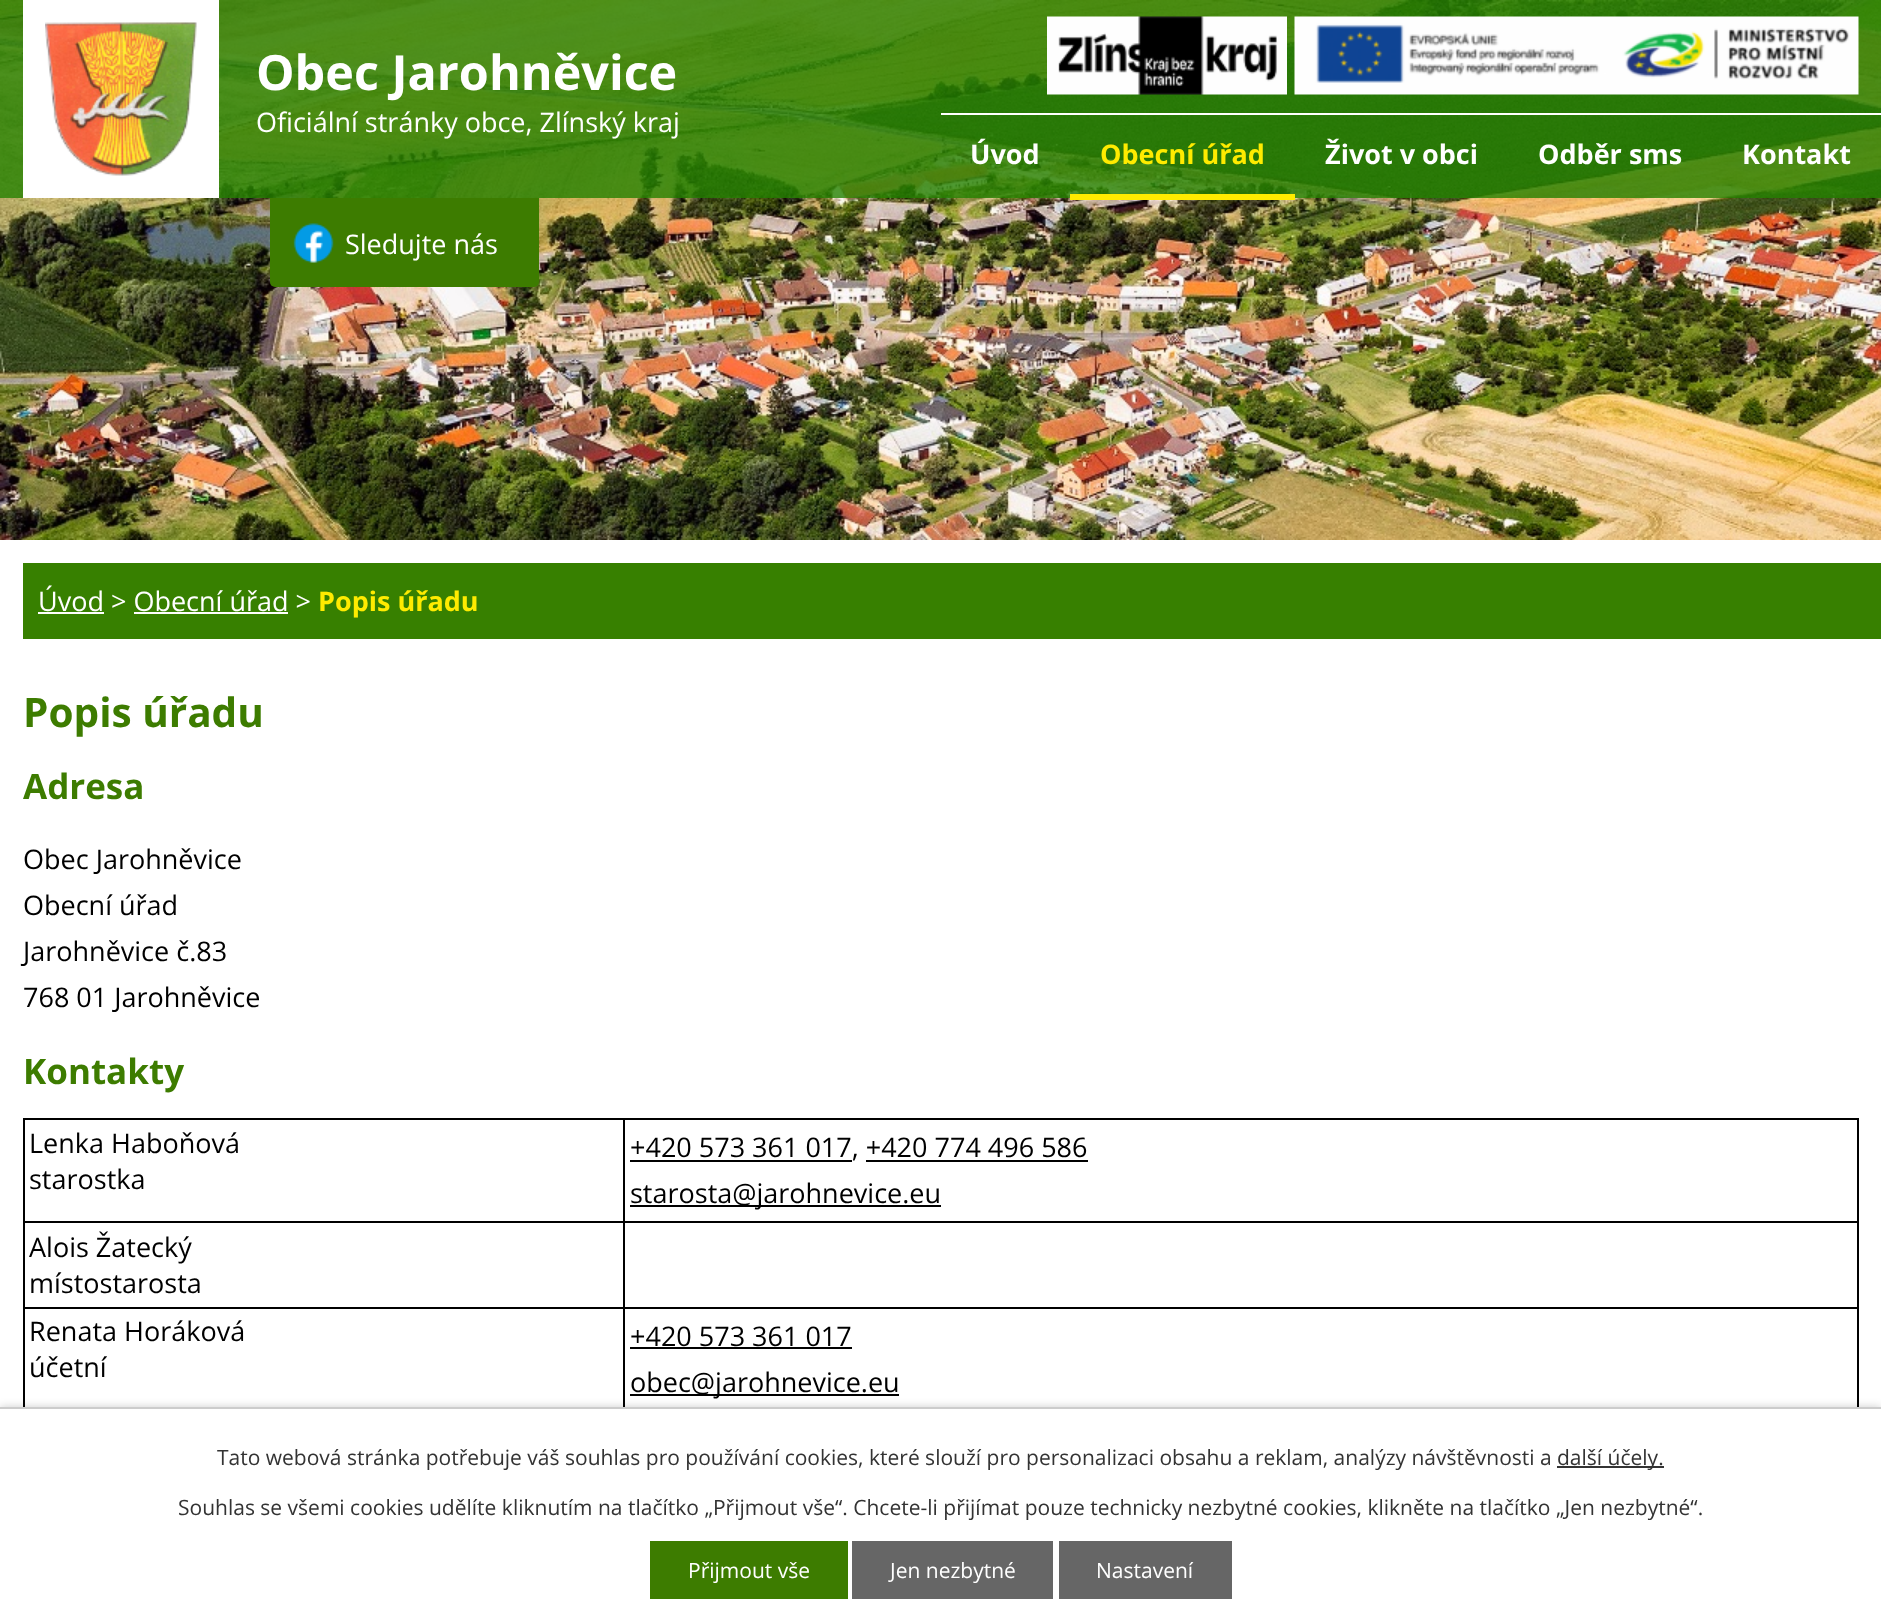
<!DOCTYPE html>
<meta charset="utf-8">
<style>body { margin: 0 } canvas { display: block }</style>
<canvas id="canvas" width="1881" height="1613"></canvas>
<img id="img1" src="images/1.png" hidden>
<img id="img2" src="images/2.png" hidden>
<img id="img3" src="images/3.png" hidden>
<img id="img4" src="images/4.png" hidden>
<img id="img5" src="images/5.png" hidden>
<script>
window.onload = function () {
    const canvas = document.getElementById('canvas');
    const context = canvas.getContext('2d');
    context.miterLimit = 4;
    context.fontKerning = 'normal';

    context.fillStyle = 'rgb(255, 255, 255)';
    context.fillRect(0, 0, 1881, 1613);
    context.drawImage(document.getElementById('img1'), 0, 0, 1881, 540);
    context.fillStyle = 'rgba(35, 129, 0, 0.8)';
    context.fillRect(0, 0, 1881, 198);
    context.fillStyle = 'rgb(255, 255, 255)';
    context.fillRect(23, 0, 196, 198);
    context.drawImage(document.getElementById('img2'), 45, 22, 152, 154);
    context.drawImage(document.getElementById('img3'), 1047, 16, 240, 79);
    context.drawImage(document.getElementById('img4'), 1294, 16, 565, 79);
    context.fillStyle = 'rgb(61, 124, 0)';
    context.beginPath();
    context.roundRect(270, 198, 269, 89, [0, 0, 5, 5]);
    context.fill();
    context.drawImage(document.getElementById('img5'), 293, 223, 41, 40);
    context.fillStyle = 'rgb(255, 255, 255)';
    context.fillRect(941, 113, 940, 2);
    context.fillStyle = 'rgb(255, 235, 0)';
    context.fillRect(1070, 194, 225, 6);
    context.fillStyle = 'rgb(55, 128, 0)';
    context.fillRect(23, 563, 1858, 76);
    context.fillStyle = 'rgb(255, 255, 255)';
    context.fillRect(38, 612, 66, 2);
    context.fillRect(134, 612, 154, 2);
    context.fillStyle = 'rgb(0, 0, 0)';
    context.fillRect(23, 1118, 1836, 2);
    context.fillRect(1857, 1118, 2, 294);
    context.fillRect(23, 1118, 2, 294);
    context.fillRect(623, 1221, 1236, 2);
    context.fillRect(623, 1307, 1236, 2);
    context.fillRect(623, 1307, 2, 105);
    context.fillRect(23, 1307, 601, 2);
    context.fillRect(623, 1221, 2, 87);
    context.fillRect(23, 1221, 601, 2);
    context.fillRect(623, 1118, 2, 105);
    context.fillRect(630, 1160, 222, 2);
    context.fillRect(866, 1160, 222, 2);
    context.fillRect(630, 1205, 311, 2);
    context.fillRect(630, 1347, 222, 2);
    context.fillRect(630, 1394, 269, 2);
    context.fillStyle = 'rgba(0, 0, 0, 0.2)';
    context.filter = 'blur(4px)';
    context.beginPath();
    context.rect(0, 1407, 1881, 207);
    context.fill();
    context.filter = 'none';
    context.fillStyle = 'rgb(255, 255, 255)';
    context.fillRect(0, 1409, 1881, 204);
    context.fillStyle = 'rgb(204, 204, 204)';
    context.fillRect(0, 1407, 1881, 2);
    context.fillStyle = 'rgb(51, 51, 51)';
    context.fillRect(1557, 1466, 107, 2);
    context.fillStyle = 'rgb(61, 124, 0)';
    context.fillRect(650, 1541, 198, 58);
    context.fillStyle = 'rgb(102, 102, 102)';
    context.fillRect(852, 1541, 201, 58);
    context.fillRect(1059, 1541, 173, 58);
    context.font = 'bold 48.5px Open Sans';
    context.fillStyle = 'rgb(255, 255, 255)';
    context.fillText('Obec Jarohněvice', 256, 90);
    context.font = '27px Open Sans';
    context.fillText('Oficiální stránky obce, Zlínský kraj', 256, 132);
    context.fillText('Sledujte nás', 345, 254);
    context.font = 'bold 27px Open Sans';
    context.fillText('Úvod', 970, 164);
    context.fillStyle = 'rgb(255, 235, 0)';
    context.fillText('Obecní úřad', 1100, 164);
    context.fillStyle = 'rgb(255, 255, 255)';
    context.fillText('Život v obci', 1325, 164);
    context.fillText('Odběr sms', 1538, 164);
    context.fillText('Kontakt', 1742, 164);
    context.font = '27px Open Sans';
    context.fillText('Úvod > Obecní úřad >', 38, 611);
    context.font = 'bold 27px Open Sans';
    context.fillStyle = 'rgb(255, 235, 0)';
    context.fillText('Popis úřadu', 318, 611);
    context.font = 'bold 40.5px Open Sans';
    context.fillStyle = 'rgb(61, 124, 0)';
    context.fillText('Popis úřadu', 23, 727);
    context.font = 'bold 35px Open Sans';
    context.fillText('Adresa', 23, 799);
    context.font = '27px Open Sans';
    context.fillStyle = 'rgb(0, 0, 0)';
    context.fillText('Obec Jarohněvice', 23, 869);
    context.fillText('Obecní úřad', 23, 915);
    context.fillText('Jarohněvice č.83', 23, 961);
    context.fillText('768 01 Jarohněvice', 23, 1007);
    context.font = 'bold 35px Open Sans';
    context.fillStyle = 'rgb(61, 124, 0)';
    context.fillText('Kontakty', 23, 1084);
    context.font = '27px Open Sans';
    context.fillStyle = 'rgb(0, 0, 0)';
    context.fillText('Lenka Haboňová', 29, 1153);
    context.fillText('starostka', 29, 1189);
    context.fillText('+420 573 361 017, +420 774 496 586', 630, 1157);
    context.fillText('starosta@jarohnevice.eu', 630, 1203);
    context.fillText('Alois Žatecký', 29, 1257);
    context.fillText('místostarosta', 29, 1293);
    context.fillText('Renata Horáková', 29, 1341);
    context.fillText('účetní', 29, 1377);
    context.fillText('+420 573 361 017', 630, 1346);
    context.fillText('obec@jarohnevice.eu', 630, 1392);
    context.font = '21px Open Sans';
    context.fillStyle = 'rgb(51, 51, 51)';
    context.fillText('Tato webová stránka potřebuje váš souhlas pro používání cookies, které slouží pro personalizaci obsahu a reklam, analýzy návštěvnosti a', 217, 1465);
    context.fillText('další účely.', 1557, 1465);
    context.fillText('Souhlas se všemi cookies udělíte kliknutím na tlačítko „Přijmout vše“. Chcete-li přijímat pouze technicky nezbytné cookies, klikněte na tlačítko „Jen nezbytné“.', 178, 1515);
    context.fillStyle = 'rgb(255, 255, 255)';
    context.fillText('Přijmout vše', 688, 1578);
    context.fillText('Jen nezbytné', 890, 1578);
    context.fillText('Nastavení', 1096, 1578);
};
</script>
